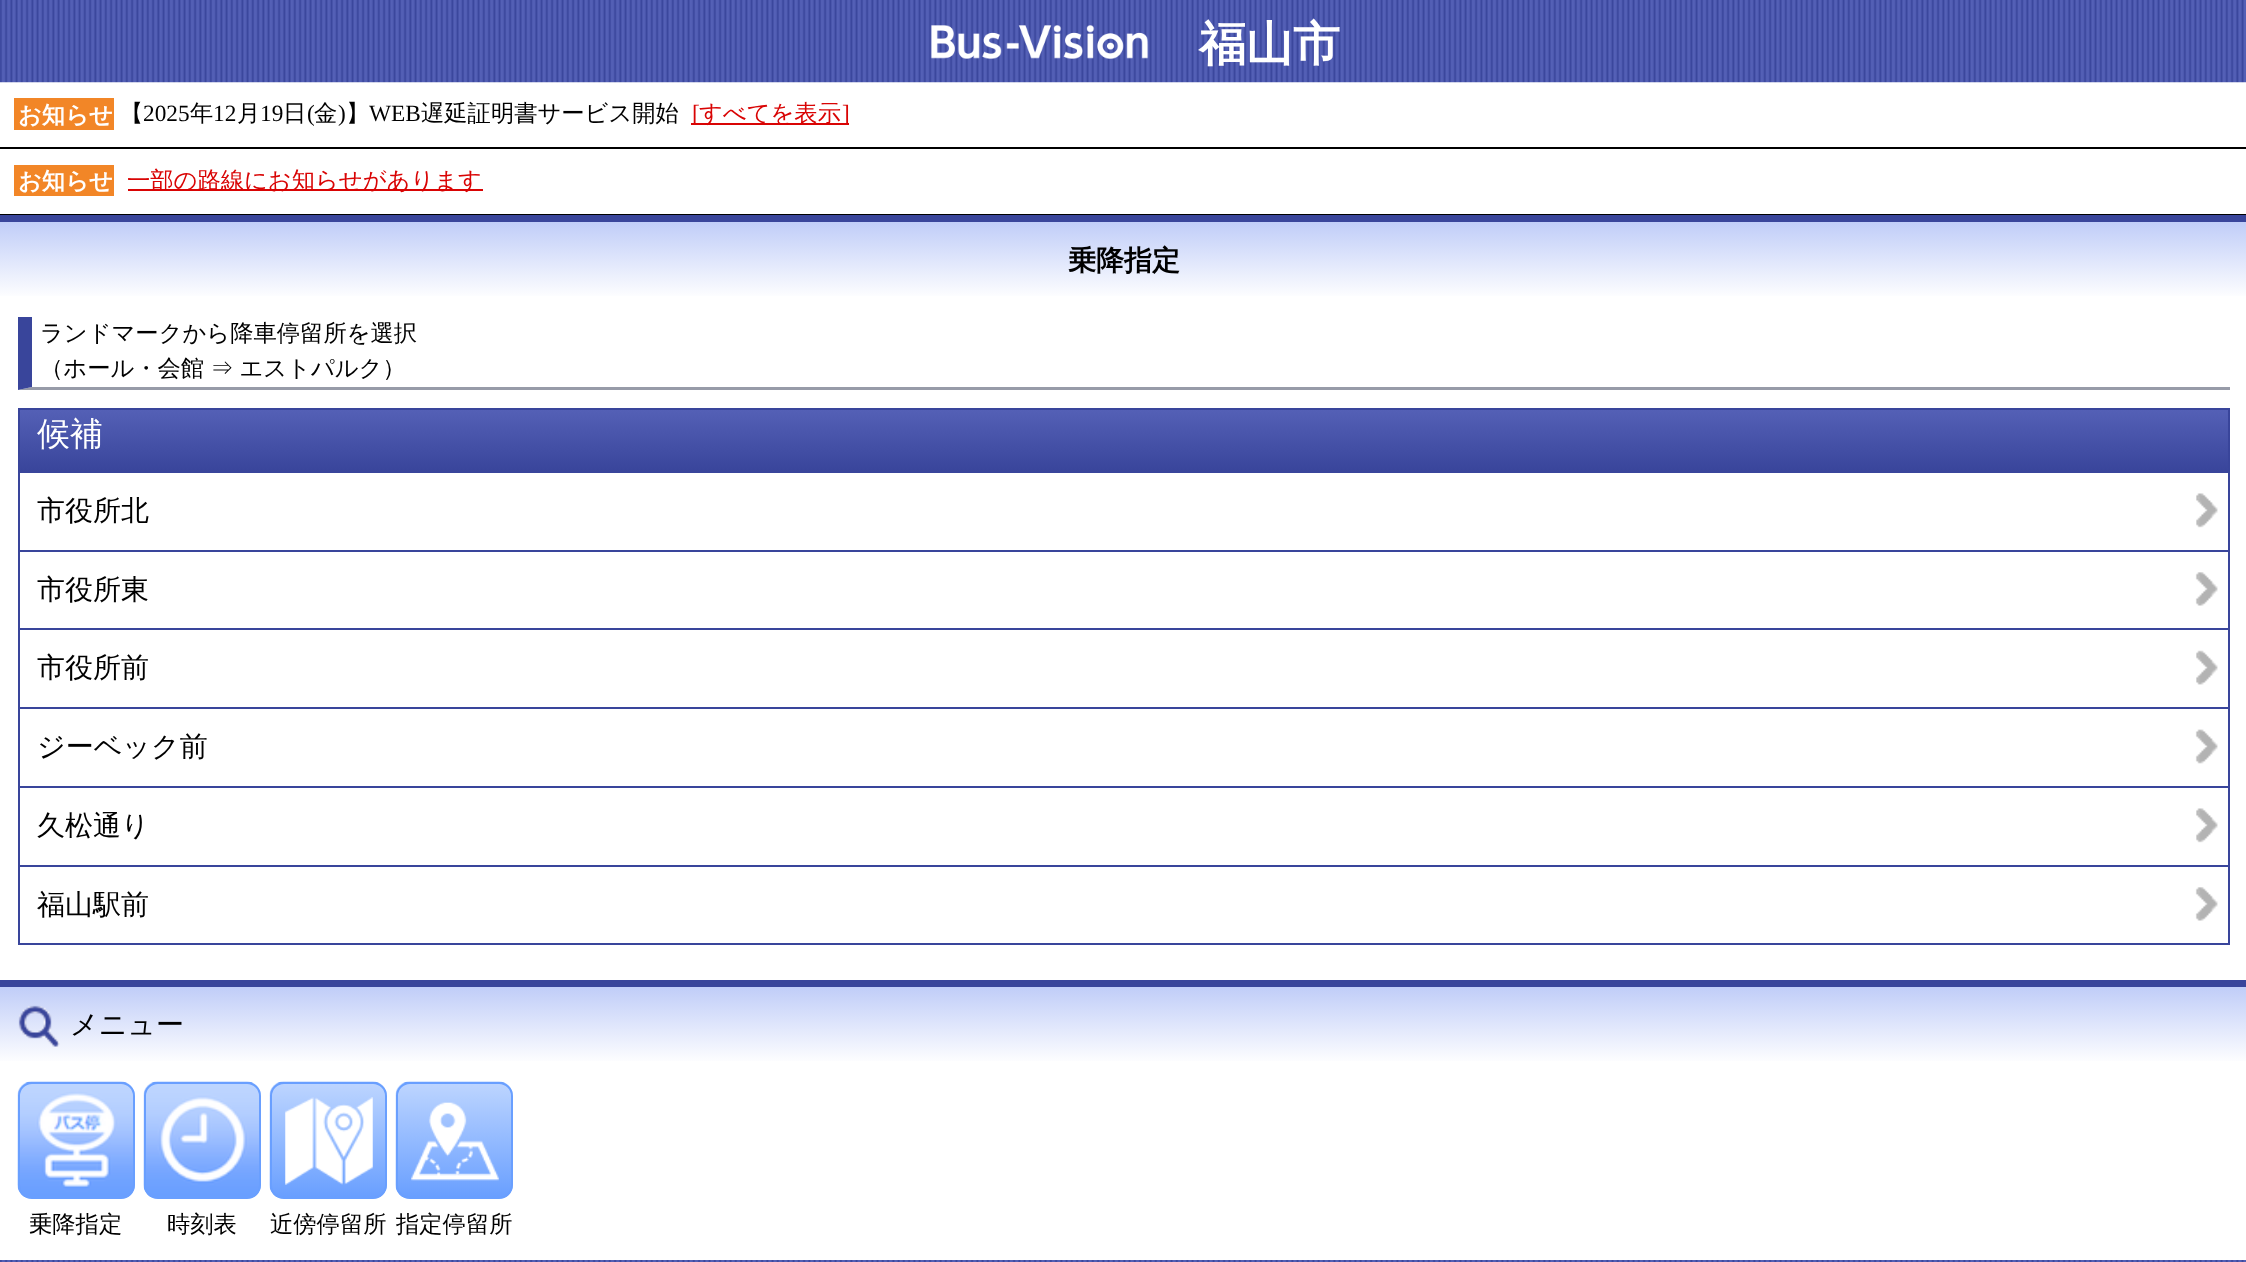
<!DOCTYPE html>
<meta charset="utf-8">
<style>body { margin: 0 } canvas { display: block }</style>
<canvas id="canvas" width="2246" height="1262"></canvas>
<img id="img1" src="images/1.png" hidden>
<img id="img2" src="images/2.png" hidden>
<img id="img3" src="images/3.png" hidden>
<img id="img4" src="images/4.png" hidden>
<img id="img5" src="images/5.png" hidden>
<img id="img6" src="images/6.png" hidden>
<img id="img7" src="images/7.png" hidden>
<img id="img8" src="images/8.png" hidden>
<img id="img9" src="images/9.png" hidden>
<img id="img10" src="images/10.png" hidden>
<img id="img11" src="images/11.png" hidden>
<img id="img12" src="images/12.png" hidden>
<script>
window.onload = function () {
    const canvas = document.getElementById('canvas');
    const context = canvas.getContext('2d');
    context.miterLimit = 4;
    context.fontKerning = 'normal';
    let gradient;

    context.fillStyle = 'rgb(255, 255, 255)';
    context.fillRect(0, 0, 2246, 1262);
    context.drawImage(document.getElementById('img1'), 0, 0, 2246, 83);
    context.drawImage(document.getElementById('img2'), 930, 25, 219, 34);
    context.fillStyle = 'rgb(0, 0, 0)';
    context.fillRect(0, 147, 2246, 2);
    context.fillStyle = 'rgb(242, 134, 39)';
    context.fillRect(14, 98, 100, 32);
    context.fillStyle = 'rgb(217, 4, 4)';
    context.fillRect(691, 123, 158, 2);
    context.fillStyle = 'rgb(0, 0, 0)';
    context.fillRect(0, 214, 2246, 1);
    context.fillStyle = 'rgb(242, 134, 39)';
    context.fillRect(14, 165, 100, 31);
    context.fillStyle = 'rgb(217, 4, 4)';
    context.fillRect(128, 189, 355, 2);
    gradient = context.createLinearGradient(0, 222, 0, 299);
    gradient.addColorStop(0, 'rgb(192, 205, 248)');
    gradient.addColorStop(1, 'rgb(255, 255, 255)');
    context.fillStyle = gradient;
    context.fillRect(0, 222, 2246, 74);
    context.fillStyle = 'rgb(57, 69, 155)';
    context.fillRect(0, 215, 2246, 7);
    context.fillStyle = 'rgb(151, 155, 168)';
    context.beginPath();
    context.moveTo(2230, 390);
    context.lineTo(18, 390);
    context.lineTo(32, 387);
    context.lineTo(2230, 387);
    context.closePath();
    context.fill();
    context.fillStyle = 'rgb(57, 69, 155)';
    context.beginPath();
    context.moveTo(18, 390);
    context.lineTo(18, 317);
    context.lineTo(32, 317);
    context.lineTo(32, 387);
    context.closePath();
    context.fill();
    gradient = context.createLinearGradient(19, 410, 19, 471);
    gradient.addColorStop(0, 'rgb(84, 96, 182)');
    gradient.addColorStop(1, 'rgb(57, 69, 155)');
    context.fillStyle = gradient;
    context.fillRect(20, 410, 2208, 61);
    context.strokeStyle = 'rgb(57, 69, 155)';
    context.lineWidth = 2;
    context.strokeRect(19, 409, 2210, 63);
    context.drawImage(document.getElementById('img3'), 2196, 493, 22, 35);
    context.fillStyle = 'rgb(57, 69, 155)';
    context.fillRect(2228, 473, 2, 78);
    context.fillRect(18, 550, 2212, 2);
    context.fillRect(18, 473, 2, 78);
    context.drawImage(document.getElementById('img4'), 2195, 572, 23, 34);
    context.fillRect(2228, 551, 2, 315);
    context.fillRect(18, 628, 2212, 2);
    context.fillRect(18, 551, 2, 79);
    context.drawImage(document.getElementById('img5'), 2196, 650, 22, 35);
    context.fillRect(18, 707, 2212, 2);
    context.fillRect(18, 630, 2, 79);
    context.drawImage(document.getElementById('img6'), 2195, 729, 23, 35);
    context.fillRect(18, 786, 2212, 2);
    context.fillRect(18, 709, 2, 79);
    context.drawImage(document.getElementById('img3'), 2196, 808, 22, 35);
    context.fillRect(18, 865, 2212, 2);
    context.fillRect(18, 788, 2, 78);
    context.drawImage(document.getElementById('img4'), 2195, 887, 23, 34);
    context.fillRect(2228, 866, 2, 79);
    context.fillRect(18, 943, 2212, 2);
    context.fillRect(18, 866, 2, 79);
    gradient = context.createLinearGradient(0, 987, 0, 1064);
    gradient.addColorStop(0, 'rgb(192, 205, 248)');
    gradient.addColorStop(1, 'rgb(255, 255, 255)');
    context.fillStyle = gradient;
    context.fillRect(0, 987, 2246, 74);
    context.fillStyle = 'rgb(57, 69, 155)';
    context.fillRect(0, 980, 2246, 7);
    context.drawImage(document.getElementById('img7'), 18, 1005, 42, 42);
    context.drawImage(document.getElementById('img8'), 17, 1081, 118, 118);
    context.beginPath();
    context.roundRect(19, 1083, 115, 115, 13);
    context.strokeStyle = 'rgb(105, 159, 255)';
    context.stroke();
    context.drawImage(document.getElementById('img9'), 143, 1081, 118, 118);
    context.beginPath();
    context.roundRect(145, 1083, 115, 115, 13);
    context.stroke();
    context.drawImage(document.getElementById('img10'), 269, 1081, 118, 118);
    context.beginPath();
    context.roundRect(271, 1083, 115, 115, 13);
    context.stroke();
    context.drawImage(document.getElementById('img11'), 395, 1081, 118, 118);
    context.beginPath();
    context.roundRect(397, 1083, 115, 115, 13);
    context.stroke();
    context.drawImage(document.getElementById('img12'), 0, 1260, 2246, 2);
    context.font = 'bold 47px WenQuanYi Zen Hei';
    context.fillStyle = 'rgb(255, 255, 255)';
    context.fillText('福山市', 1199, 60);
    context.font = 'bold 23.3px WenQuanYi Zen Hei';
    context.fillText('お知らせ', 18, 123);
    context.font = '500 23.3px WenQuanYi Zen Hei';
    context.fillStyle = 'rgb(0, 0, 0)';
    context.fillText('【', 120, 121);
    context.font = '23.3px Liberation Serif';
    context.fillText('2025', 143, 121);
    context.font = '500 23.3px WenQuanYi Zen Hei';
    context.fillText('年', 190, 121);
    context.font = '23.3px Liberation Serif';
    context.fillText('12', 213, 121);
    context.font = '500 23.3px WenQuanYi Zen Hei';
    context.fillText('月', 237, 121);
    context.font = '23.3px Liberation Serif';
    context.fillText('19', 260, 121);
    context.font = '500 23.3px WenQuanYi Zen Hei';
    context.fillText('日', 283, 121);
    context.font = '23.3px Liberation Serif';
    context.fillText('(', 307, 121);
    context.font = '500 23.3px WenQuanYi Zen Hei';
    context.fillText('金', 314, 121);
    context.font = '23.3px Liberation Serif';
    context.fillText(')', 338, 121);
    context.font = '500 23.3px WenQuanYi Zen Hei';
    context.fillText('】', 346, 121);
    context.font = '23.3px Liberation Serif';
    context.fillText('WEB', 369, 121);
    context.font = '500 23.3px WenQuanYi Zen Hei';
    context.fillText('遅延証明書サービス開始', 421, 121);
    context.font = '23.3px Liberation Serif';
    context.fillStyle = 'rgb(217, 4, 4)';
    context.fillText('[', 692, 121);
    context.font = '500 23.3px WenQuanYi Zen Hei';
    context.fillText('すべてを表示', 699, 121);
    context.font = '23.3px Liberation Serif';
    context.fillText(']', 842, 121);
    context.font = 'bold 23.3px WenQuanYi Zen Hei';
    context.fillStyle = 'rgb(255, 255, 255)';
    context.fillText('お知らせ', 18, 189);
    context.font = '500 23.3px WenQuanYi Zen Hei';
    context.fillStyle = 'rgb(217, 4, 4)';
    context.fillText('一部の路線にお知らせがあります', 127, 188);
    context.font = 'bold 28px WenQuanYi Zen Hei';
    context.fillStyle = 'rgb(0, 0, 0)';
    context.fillText('乗降指定', 1068, 270);
    context.font = '500 23.3px WenQuanYi Zen Hei';
    context.fillText('ランドマークから降車停留所を選択', 40, 341);
    context.wordSpacing = '-1px';
    context.fillText('（ホール・会館 ⇒ エストパルク）', 40, 376);
    context.wordSpacing = '0px';
    context.font = '500 33px WenQuanYi Zen Hei';
    context.fillStyle = 'rgb(255, 255, 255)';
    context.fillText('候補', 37, 445);
    context.font = '500 28px WenQuanYi Zen Hei';
    context.fillStyle = 'rgb(0, 0, 0)';
    context.fillText('市役所北', 37, 520);
    context.fillText('市役所東', 37, 599);
    context.fillText('市役所前', 37, 677);
    context.fillText('ジーベック前', 37, 756);
    context.fillText('久松通り', 37, 835);
    context.fillText('福山駅前', 37, 914);
    context.fillText('メニュー', 70, 1034);
    context.font = '500 23.3px WenQuanYi Zen Hei';
    context.fillText('乗降指定', 29, 1232);
    context.fillText('時刻表', 167, 1232);
    context.fillText('近傍停留所', 270, 1232);
    context.fillText('指定停留所', 396, 1232);
};
</script>
